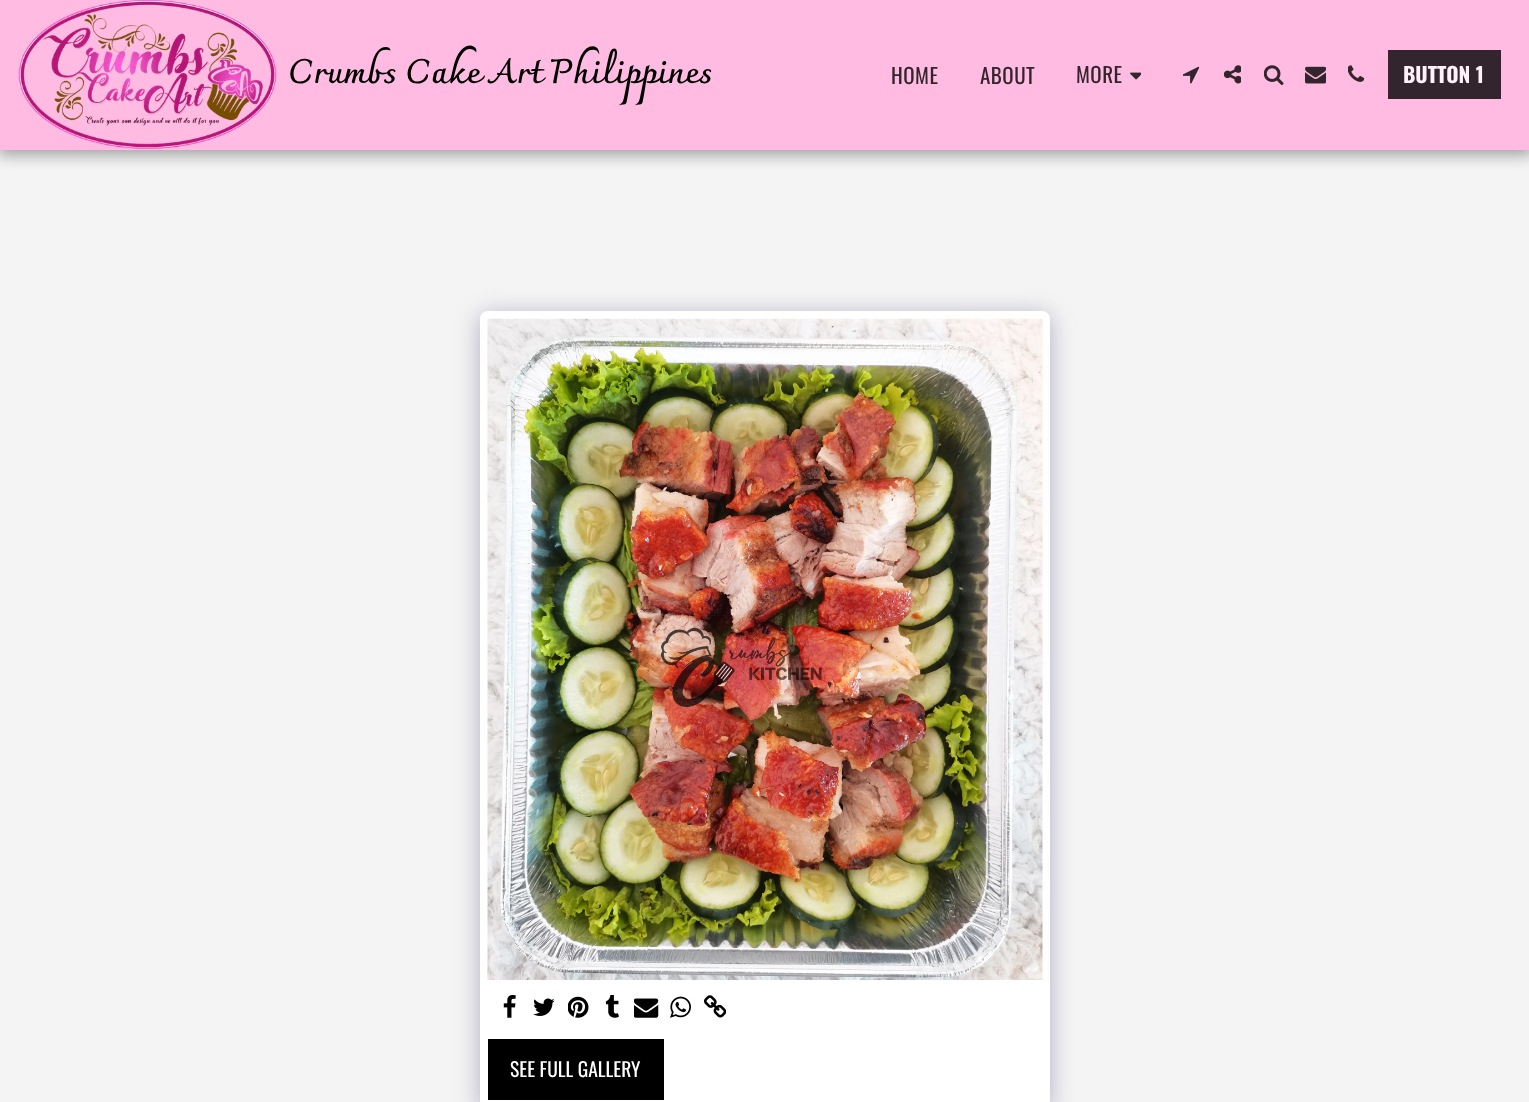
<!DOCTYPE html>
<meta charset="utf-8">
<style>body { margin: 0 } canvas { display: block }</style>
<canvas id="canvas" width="1529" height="1102"></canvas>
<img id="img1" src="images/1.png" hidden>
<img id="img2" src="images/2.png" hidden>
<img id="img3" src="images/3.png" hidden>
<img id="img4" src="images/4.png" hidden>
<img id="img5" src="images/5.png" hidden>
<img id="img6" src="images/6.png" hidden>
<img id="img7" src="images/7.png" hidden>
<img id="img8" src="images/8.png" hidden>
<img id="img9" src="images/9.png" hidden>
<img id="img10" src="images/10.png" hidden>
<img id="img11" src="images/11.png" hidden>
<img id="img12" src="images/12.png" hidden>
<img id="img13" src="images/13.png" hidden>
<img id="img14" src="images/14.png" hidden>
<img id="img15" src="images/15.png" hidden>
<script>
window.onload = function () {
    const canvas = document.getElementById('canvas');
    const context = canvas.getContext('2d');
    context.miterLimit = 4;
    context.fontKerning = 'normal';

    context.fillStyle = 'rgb(244, 244, 244)';
    context.fillRect(0, 0, 1529, 1102);
    context.fillStyle = 'rgba(0, 0, 0, 0.35)';
    context.filter = 'blur(7.5px)';
    context.beginPath();
    context.rect(-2, 0, 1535, 155);
    context.fill();
    context.filter = 'none';
    context.fillStyle = 'rgb(255, 187, 225)';
    context.fillRect(0, 0, 1529, 150);
    context.drawImage(document.getElementById('img1'), 18, 0, 259, 149);
    context.drawImage(document.getElementById('img2'), 1130, 72, 11, 8);
    context.drawImage(document.getElementById('img3'), 1183, 66, 17, 18);
    context.drawImage(document.getElementById('img4'), 1224, 65, 17, 19);
    context.drawImage(document.getElementById('img5'), 1264, 65, 20, 20);
    context.drawImage(document.getElementById('img6'), 1305, 66, 21, 18);
    context.drawImage(document.getElementById('img7'), 1348, 65, 17, 17);
    context.fillStyle = 'rgb(51, 37, 45)';
    context.fillRect(1388, 50, 113, 49);
    context.fillStyle = 'rgba(77, 63, 122, 0.4)';
    context.filter = 'blur(12.5px)';
    context.beginPath();
    context.roundRect(480, 315, 570, 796, 8);
    context.fill();
    context.filter = 'none';
    context.fillStyle = 'rgb(255, 255, 255)';
    context.beginPath();
    context.roundRect(480, 311, 570, 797, 8);
    context.fill();
    context.drawImage(document.getElementById('img8'), 487, 318, 556, 662);
    context.drawImage(document.getElementById('img9'), 503, 995, 13, 23);
    context.drawImage(document.getElementById('img10'), 533, 998, 22, 18);
    context.drawImage(document.getElementById('img11'), 568, 996, 21, 22);
    context.drawImage(document.getElementById('img12'), 605, 995, 14, 23);
    context.drawImage(document.getElementById('img13'), 634, 998, 25, 20);
    context.drawImage(document.getElementById('img14'), 670, 996, 21, 22);
    context.drawImage(document.getElementById('img15'), 704, 995, 22, 23);
    context.fillStyle = 'rgb(0, 0, 0)';
    context.fillRect(488, 1039, 176, 61);
    context.font = 'bold 33.75px Charmonman';
    context.fillText('Crumbs Cake Art Philippines', 288, 83);
    context.letterSpacing = '0.5px';
    context.font = '21px Oswald';
    context.fillStyle = 'rgb(51, 37, 45)';
    context.fillText('HOME', 891, 84);
    context.fillText('ABOUT', 980, 84);
    context.fillText('MORE', 1076, 83);
    context.letterSpacing = '0px';
    context.font = 'bold 21px Oswald';
    context.fillStyle = 'rgb(255, 241, 249)';
    context.fillText('BUTTON 1', 1403, 83);
    context.font = '19.5px Oswald';
    context.fillStyle = 'rgb(255, 255, 255)';
    context.fillText('SEE FULL GALLERY', 510, 1077);
};
</script>
